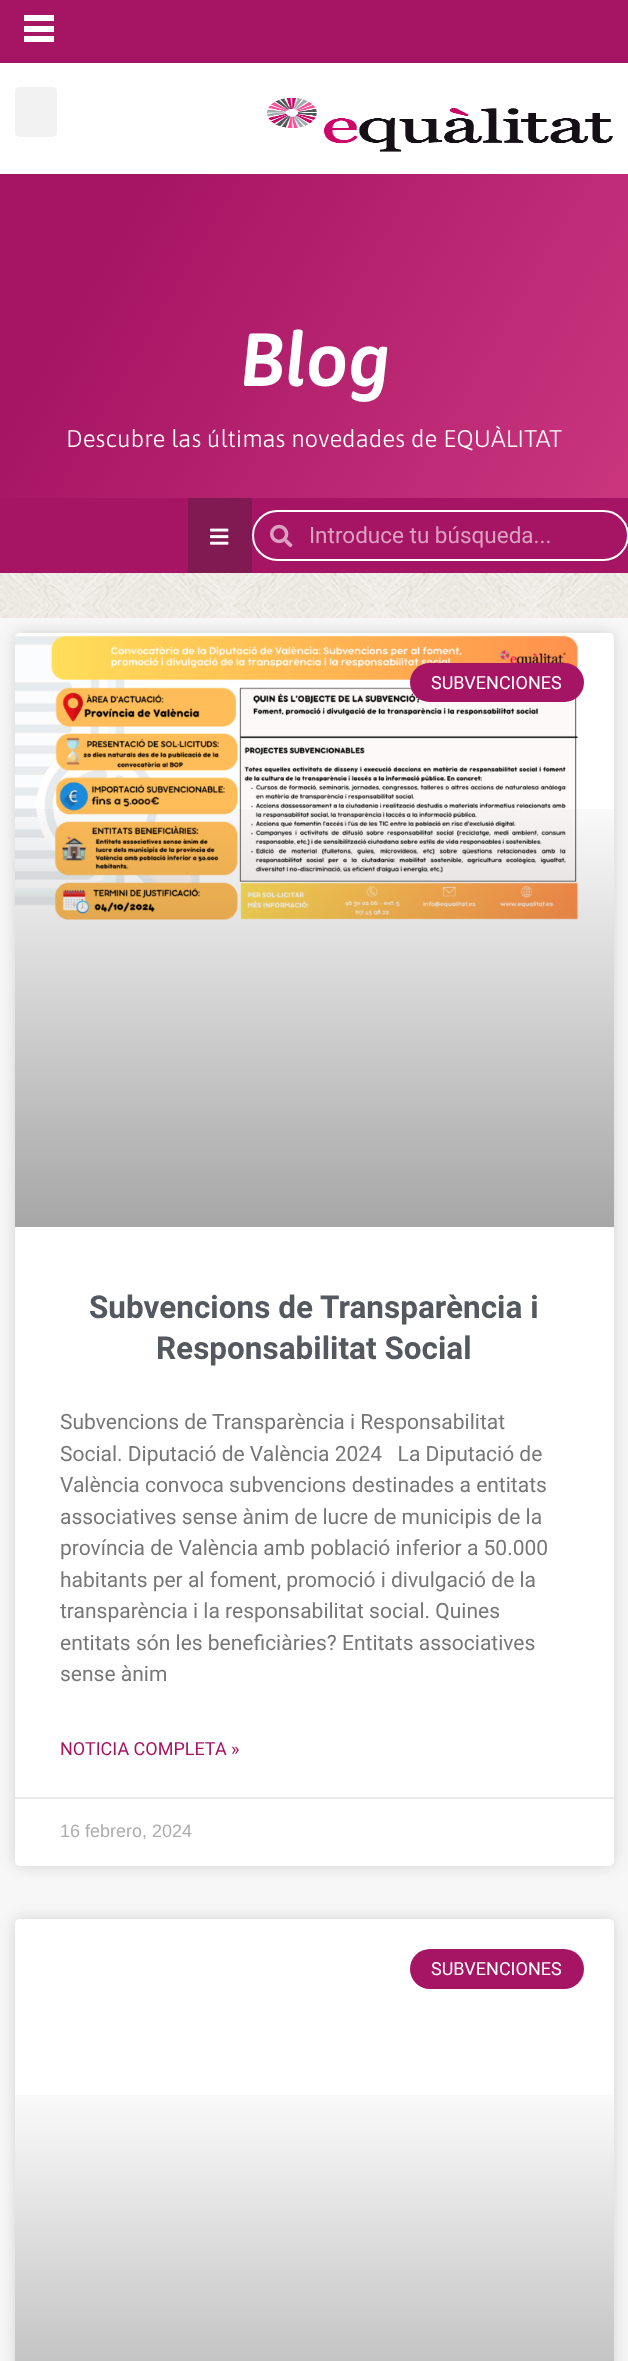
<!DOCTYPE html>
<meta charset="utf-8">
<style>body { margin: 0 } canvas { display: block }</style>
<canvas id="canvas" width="628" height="2361"></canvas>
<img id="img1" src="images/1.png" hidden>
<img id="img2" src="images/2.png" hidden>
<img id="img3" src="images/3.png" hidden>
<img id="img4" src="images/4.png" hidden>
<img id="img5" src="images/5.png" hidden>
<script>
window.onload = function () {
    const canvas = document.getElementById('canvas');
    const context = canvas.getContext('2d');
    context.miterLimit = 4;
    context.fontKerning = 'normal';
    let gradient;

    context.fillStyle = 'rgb(255, 255, 255)';
    context.fillRect(0, 0, 628, 2361);
    context.drawImage(document.getElementById('img1'), 0, 573, 628, 45);
    context.fillStyle = 'rgb(166, 21, 100)';
    context.fillRect(0, 0, 628, 63);
    context.fillStyle = 'rgb(255, 255, 255)';
    context.fillRect(24, 15, 30, 6);
    context.fillRect(24, 26, 30, 6);
    context.fillRect(24, 36, 30, 6);
    context.fillStyle = 'rgb(242, 242, 242)';
    context.beginPath();
    context.roundRect(15, 87, 42, 50, 5);
    context.fill();
    context.drawImage(document.getElementById('img2'), 267, 98, 346, 61);
    gradient = context.createLinearGradient(8, 159, 620, 513);
    gradient.addColorStop(0.19, 'rgb(166, 21, 100)');
    gradient.addColorStop(1, 'rgb(202, 53, 126)');
    context.fillStyle = gradient;
    context.fillRect(0, 174, 628, 324);
    context.fillStyle = 'rgb(166, 21, 100)';
    context.fillRect(0, 498, 628, 75);
    context.fillStyle = 'rgb(129, 25, 82)';
    context.fillRect(188, 498, 64, 75);
    context.drawImage(document.getElementById('img3'), 210, 528, 19, 17);
    context.beginPath();
    context.roundRect(253, 511, 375, 49, 24.5);
    context.strokeStyle = 'rgb(255, 255, 255)';
    context.lineWidth = 2;
    context.stroke();
    context.drawImage(document.getElementById('img4'), 270, 524, 23, 24);
    context.fillStyle = 'rgb(247, 247, 247)';
    context.fillRect(0, 618, 628, 1743);
    context.fillStyle = 'rgba(0, 0, 0, 0.15)';
    context.filter = 'blur(7.5px)';
    context.beginPath();
    context.roundRect(15, 633, 599, 1233, 5);
    context.fill();
    context.filter = 'none';
    context.fillStyle = 'rgb(255, 255, 255)';
    context.beginPath();
    context.roundRect(15, 633, 599, 1233, 5);
    context.fill();
    context.drawImage(document.getElementById('img5'), 15, 633, 598, 287);
    gradient = context.createLinearGradient(314, 1227, 314, 633);
    gradient.addColorStop(0, 'rgba(0, 0, 0, 0.35)');
    gradient.addColorStop(0.75, 'rgba(0, 0, 0, 0)');
    context.fillStyle = gradient;
    context.fillRect(15, 809, 599, 418);
    context.fillStyle = 'rgb(166, 21, 100)';
    context.beginPath();
    context.roundRect(410, 663, 174, 39, 19.5);
    context.fill();
    context.fillStyle = 'rgb(234, 234, 234)';
    context.fillRect(15, 1797, 599, 2);
    context.fillStyle = 'rgba(0, 0, 0, 0.15)';
    context.filter = 'blur(7.5px)';
    context.beginPath();
    context.roundRect(15, 1919, 599, 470, 5);
    context.fill();
    context.filter = 'none';
    context.fillStyle = 'rgb(255, 255, 255)';
    context.beginPath();
    context.roundRect(15, 1919, 599, 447, 5);
    context.fill();
    context.fillStyle = 'rgb(166, 21, 100)';
    context.beginPath();
    context.roundRect(410, 1949, 174, 40, 20);
    context.fill();
    gradient = context.createLinearGradient(314, 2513, 314, 1919);
    gradient.addColorStop(0, 'rgba(0, 0, 0, 0.35)');
    gradient.addColorStop(0.75, 'rgba(0, 0, 0, 0)');
    context.fillStyle = gradient;
    context.fillRect(15, 2095, 599, 266);
    context.font = 'italic 600 75px Asap';
    context.fillStyle = 'rgb(255, 255, 255)';
    context.fillText('Blog', 240, 386);
    context.font = '300 24px Asap';
    context.fillText('Descubre las últimas novedades de EQUÀLITAT', 66, 447);
    context.font = '22.5px Roboto';
    context.fillStyle = 'rgb(219, 161, 193)';
    context.fillText('Introduce tu búsqueda...', 309, 543);
    context.font = '18px Roboto';
    context.fillStyle = 'rgb(255, 255, 255)';
    context.fillText('SUBVENCIONES', 431, 689);
    context.font = 'bold 31.5px Roboto';
    context.fillStyle = 'rgb(84, 89, 95)';
    context.fillText('Subvencions de Transparència i', 89, 1318);
    context.fillText('Responsabilitat Social', 156, 1359);
    context.font = '21px Roboto';
    context.fillStyle = 'rgb(119, 119, 119)';
    context.fillText('Subvencions de Transparència i Responsabilitat', 60, 1429);
    context.fillText('Social. Diputació de València 2024   La Diputació de', 60, 1461);
    context.fillText('València convoca subvencions destinades a entitats', 60, 1492);
    context.fillText('associatives sense ànim de lucre de municipis de la', 60, 1524);
    context.fillText('província de València amb població inferior a 50.000', 60, 1555);
    context.fillText('habitants per al foment, promoció i divulgació de la', 60, 1587);
    context.fillText('transparència i la responsabilitat social. Quines', 60, 1618);
    context.fillText('entitats són les beneficiàries? Entitats associatives', 60, 1650);
    context.fillText('sense ànim', 60, 1681);
    context.font = '18px Roboto';
    context.fillStyle = 'rgb(166, 21, 100)';
    context.fillText('NOTICIA COMPLETA »', 60, 1755);
    context.font = '18px Liberation Sans';
    context.fillStyle = 'rgb(173, 173, 173)';
    context.fillText('16 febrero, 2024', 60, 1837);
    context.font = '18px Roboto';
    context.fillStyle = 'rgb(255, 255, 255)';
    context.fillText('SUBVENCIONES', 431, 1975);
};
</script>
